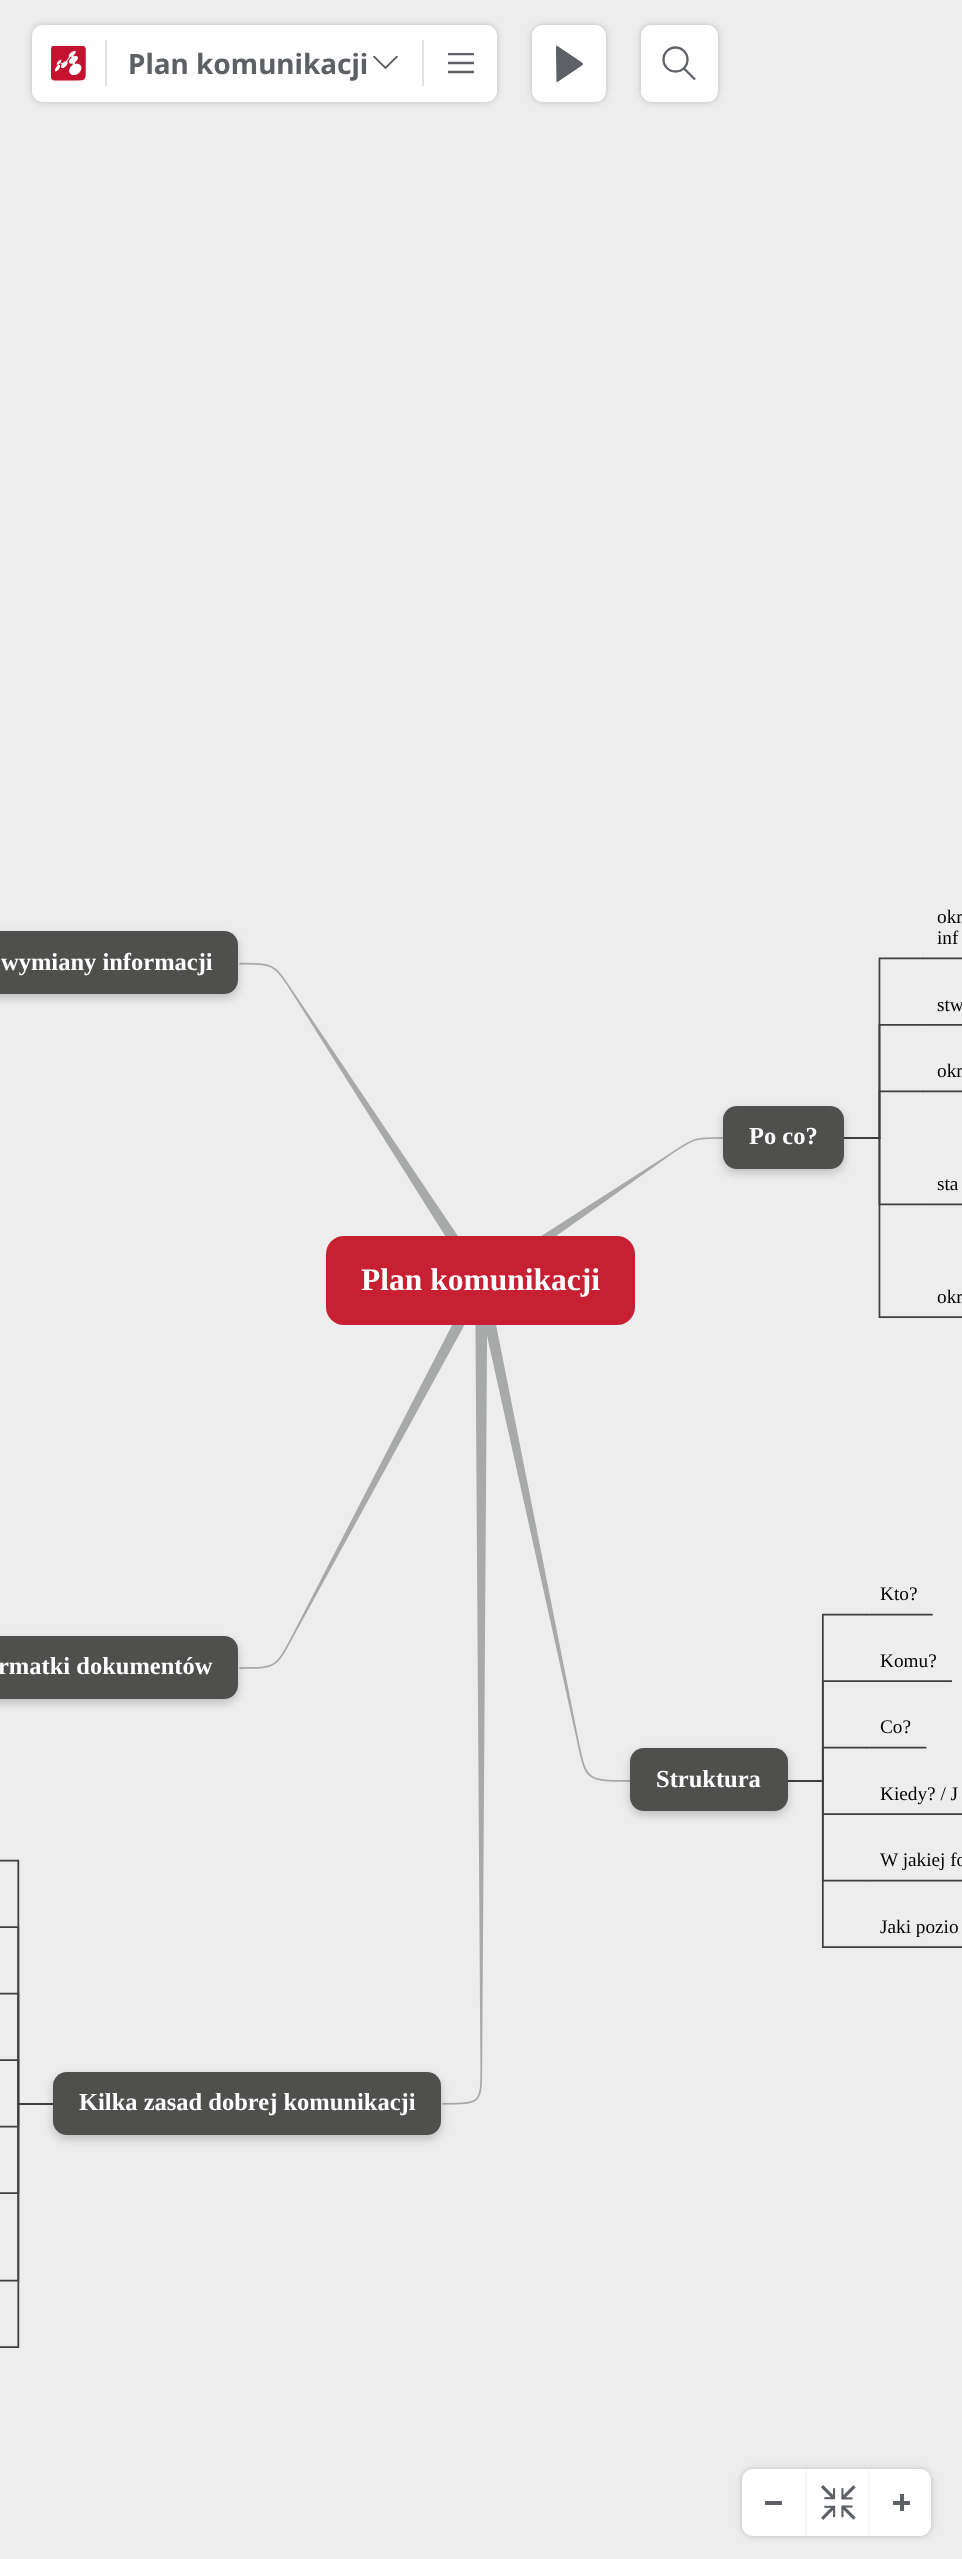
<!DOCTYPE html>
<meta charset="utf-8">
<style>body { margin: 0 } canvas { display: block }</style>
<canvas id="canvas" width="962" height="2559"></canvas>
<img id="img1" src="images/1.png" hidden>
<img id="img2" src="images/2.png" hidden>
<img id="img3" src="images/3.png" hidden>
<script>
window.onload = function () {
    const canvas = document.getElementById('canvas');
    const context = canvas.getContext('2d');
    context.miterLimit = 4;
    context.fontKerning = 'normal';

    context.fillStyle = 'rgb(237, 237, 237)';
    context.fillRect(0, 0, 962, 2559);
    context.fillStyle = 'rgba(0, 0, 0, 0.1)';
    context.filter = 'blur(4.5px)';
    context.beginPath();
    context.roundRect(32, 25, 465, 77, 11);
    context.fill();
    context.filter = 'none';
    context.filter = 'blur(2.5px)';
    context.beginPath();
    context.roundRect(32, 25, 465, 77, 11);
    context.fill();
    context.filter = 'none';
    context.fillStyle = 'rgb(255, 255, 255)';
    context.beginPath();
    context.roundRect(32, 25, 465, 77, 11);
    context.fill();
    context.drawImage(document.getElementById('img1'), 51, 46, 35, 35);
    context.fillStyle = 'rgb(225, 225, 225)';
    context.fillRect(105, 40, 2, 46);
    context.save();
    context.beginPath();
    context.moveTo(422, 56);
    context.lineTo(422, 70);
    context.lineTo(348.5, 70);
    context.lineTo(348.5, 56);
    context.closePath();
    context.clip();
    context.beginPath();
    context.moveTo(397.5, 56);
    context.lineTo(385.5, 68);
    context.lineTo(373.5, 56);
    context.strokeStyle = 'rgb(93, 96, 101)';
    context.lineWidth = 1.9;
    context.stroke();
    context.restore();
    context.fillRect(422, 40, 2, 46);
    context.save();
    context.beginPath();
    context.rect(448, 53, 26, 21);
    context.clip();
    context.beginPath();
    context.moveTo(448, 54);
    context.lineTo(474, 54);
    context.moveTo(448, 63);
    context.lineTo(474, 63);
    context.moveTo(448, 72);
    context.lineTo(474, 72);
    context.strokeStyle = 'rgb(93, 96, 101)';
    context.lineWidth = 2.6;
    context.stroke();
    context.restore();
    context.fillStyle = 'rgba(0, 0, 0, 0.1)';
    context.filter = 'blur(4.5px)';
    context.beginPath();
    context.roundRect(532, 25, 74, 77, 11);
    context.fill();
    context.filter = 'none';
    context.filter = 'blur(2.5px)';
    context.beginPath();
    context.roundRect(532, 25, 74, 77, 11);
    context.fill();
    context.filter = 'none';
    context.fillStyle = 'rgb(255, 255, 255)';
    context.beginPath();
    context.roundRect(532, 25, 74, 77, 11);
    context.fill();
    context.fillStyle = 'rgb(93, 96, 101)';
    context.beginPath();
    context.moveTo(557.5, 46);
    context.lineTo(580.5, 61.5);
    context.bezierCurveTo(585, 64.5, 583, 64.5, 579, 67.5);
    context.lineTo(557.5, 82);
    context.bezierCurveTo(557, 82.5, 556.5, 82, 556.5, 82);
    context.lineTo(556, 52.5);
    context.bezierCurveTo(556, 45.5, 556, 44.5, 557.5, 46);
    context.closePath();
    context.fill();
    context.fillStyle = 'rgba(0, 0, 0, 0.1)';
    context.filter = 'blur(4.5px)';
    context.beginPath();
    context.roundRect(641, 25, 77, 77, 11);
    context.fill();
    context.filter = 'none';
    context.filter = 'blur(2.5px)';
    context.beginPath();
    context.roundRect(641, 25, 77, 77, 11);
    context.fill();
    context.filter = 'none';
    context.fillStyle = 'rgb(255, 255, 255)';
    context.beginPath();
    context.roundRect(641, 25, 77, 77, 11);
    context.fill();
    context.beginPath();
    context.arc(675.5, 59.5, 12, 0, 2 * Math.PI);
    context.strokeStyle = 'rgb(93, 96, 101)';
    context.lineWidth = 2.3;
    context.stroke();
    context.beginPath();
    context.moveTo(684, 68.5);
    context.lineTo(695, 79.5);
    context.stroke();
    context.drawImage(document.getElementById('img2'), 0, 957, 962, 1391);
    context.fillStyle = 'rgba(0, 0, 0, 0.2)';
    context.filter = 'blur(5px)';
    context.beginPath();
    context.roundRect(-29, 935, 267, 63, 14);
    context.fill();
    context.filter = 'none';
    context.fillStyle = 'rgb(79, 79, 78)';
    context.beginPath();
    context.roundRect(0, 931, 238, 63, [0, 14, 14, 0]);
    context.fill();
    context.fillStyle = 'rgba(0, 0, 0, 0.2)';
    context.filter = 'blur(5px)';
    context.beginPath();
    context.roundRect(723, 1110, 121, 63, 14);
    context.fill();
    context.filter = 'none';
    context.fillStyle = 'rgb(79, 79, 78)';
    context.beginPath();
    context.roundRect(723, 1106, 121, 63, 14);
    context.fill();
    context.fillStyle = 'rgb(198, 32, 50)';
    context.beginPath();
    context.roundRect(326, 1236, 309, 89, 18);
    context.fill();
    context.fillStyle = 'rgba(0, 0, 0, 0.2)';
    context.filter = 'blur(5px)';
    context.beginPath();
    context.roundRect(-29, 1640, 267, 63, 14);
    context.fill();
    context.filter = 'none';
    context.fillStyle = 'rgb(79, 79, 78)';
    context.beginPath();
    context.roundRect(0, 1636, 238, 63, [0, 14, 14, 0]);
    context.fill();
    context.fillStyle = 'rgba(0, 0, 0, 0.2)';
    context.filter = 'blur(5px)';
    context.beginPath();
    context.roundRect(630, 1752, 158, 63, 14);
    context.fill();
    context.filter = 'none';
    context.fillStyle = 'rgb(79, 79, 78)';
    context.beginPath();
    context.roundRect(630, 1748, 158, 63, 14);
    context.fill();
    context.fillStyle = 'rgba(0, 0, 0, 0.2)';
    context.filter = 'blur(5px)';
    context.beginPath();
    context.roundRect(53, 2076, 388, 63, 14);
    context.fill();
    context.filter = 'none';
    context.fillStyle = 'rgb(79, 79, 78)';
    context.beginPath();
    context.roundRect(53, 2072, 388, 63, 14);
    context.fill();
    context.fillStyle = 'rgba(0, 0, 0, 0.1)';
    context.filter = 'blur(4.5px)';
    context.beginPath();
    context.roundRect(742, 2469, 189, 67, 11);
    context.fill();
    context.filter = 'none';
    context.filter = 'blur(2.5px)';
    context.beginPath();
    context.roundRect(742, 2469, 189, 67, 11);
    context.fill();
    context.filter = 'none';
    context.fillStyle = 'rgb(255, 255, 255)';
    context.beginPath();
    context.roundRect(742, 2469, 189, 67, 11);
    context.fill();
    context.fillStyle = 'rgb(93, 96, 101)';
    context.fillRect(765, 2501, 17, 4);
    context.fillStyle = 'rgb(248, 248, 250)';
    context.fillRect(805, 2469, 2, 67);
    context.drawImage(document.getElementById('img3'), 821, 2485, 35, 35);
    context.fillRect(868, 2469, 2, 67);
    context.fillStyle = 'rgb(93, 96, 101)';
    context.fillRect(893, 2501, 17, 4);
    context.fillRect(900, 2494, 4, 17);
    context.font = 'bold 28px Noto Sans';
    context.fillText('Plan komunikacji', 128, 74);
    context.font = '19.25px Liberation Serif';
    context.fillStyle = 'rgb(0, 0, 0)';
    context.fillText('okr', 937, 923);
    context.fillText('inf', 937, 944);
    context.font = 'bold 24.5px Liberation Serif';
    context.fillStyle = 'rgb(255, 255, 255)';
    context.fillText('wymiany informacji', 1, 970);
    context.font = '19.25px Liberation Serif';
    context.fillStyle = 'rgb(0, 0, 0)';
    context.fillText('stw', 937, 1011);
    context.fillText('okr', 937, 1077);
    context.font = 'bold 24.5px Liberation Serif';
    context.fillStyle = 'rgb(255, 255, 255)';
    context.fillText('Po co?', 749, 1144);
    context.font = '19.25px Liberation Serif';
    context.fillStyle = 'rgb(0, 0, 0)';
    context.fillText('sta', 937, 1190);
    context.font = 'bold 31.5px Liberation Serif';
    context.fillStyle = 'rgb(255, 255, 255)';
    context.fillText('Plan komunikacji', 361, 1290);
    context.font = '19.25px Liberation Serif';
    context.fillStyle = 'rgb(0, 0, 0)';
    context.fillText('okr', 937, 1303);
    context.fillText('Kto?', 880, 1600);
    context.font = 'bold 24.5px Liberation Serif';
    context.fillStyle = 'rgb(255, 255, 255)';
    context.fillText('rmatki dokumentów', -2, 1674);
    context.font = '19.25px Liberation Serif';
    context.fillStyle = 'rgb(0, 0, 0)';
    context.fillText('Komu?', 880, 1667);
    context.fillText('Co?', 880, 1733);
    context.font = 'bold 24.5px Liberation Serif';
    context.fillStyle = 'rgb(255, 255, 255)';
    context.fillText('Struktura', 656, 1787);
    context.font = '19.25px Liberation Serif';
    context.fillStyle = 'rgb(0, 0, 0)';
    context.fillText('Kiedy? / J', 880, 1800);
    context.fillText('W jakiej fo', 880, 1866);
    context.fillText('Jaki pozio', 880, 1933);
    context.font = 'bold 24.5px Liberation Serif';
    context.fillStyle = 'rgb(255, 255, 255)';
    context.fillText('Kilka zasad dobrej komunikacji', 79, 2110);
};
</script>
